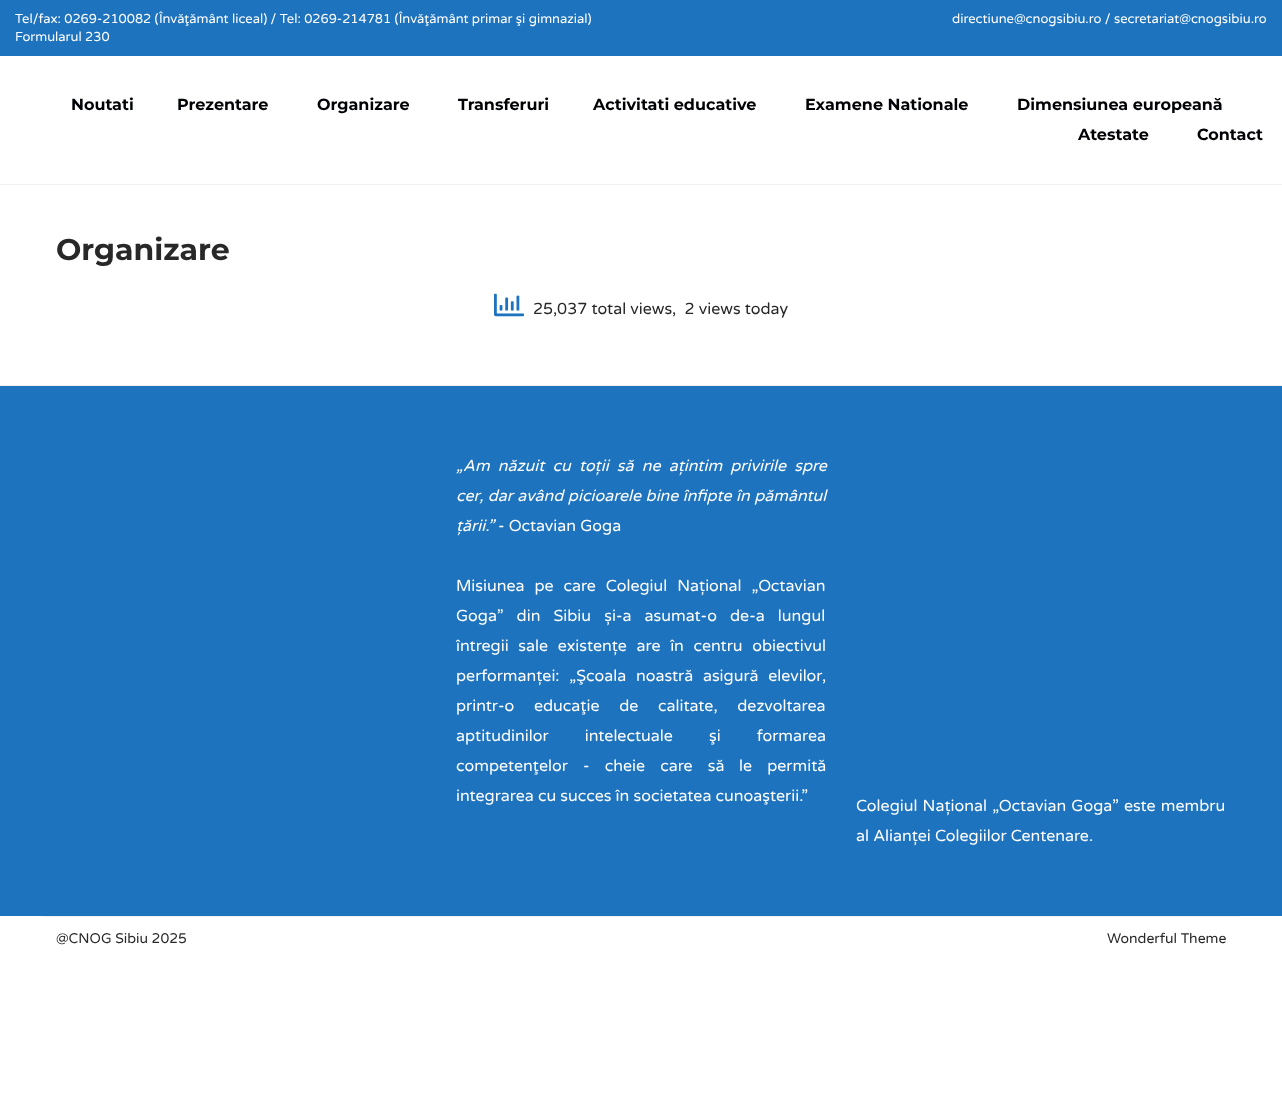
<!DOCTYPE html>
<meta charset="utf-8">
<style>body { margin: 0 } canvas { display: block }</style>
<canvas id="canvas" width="1282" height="1103"></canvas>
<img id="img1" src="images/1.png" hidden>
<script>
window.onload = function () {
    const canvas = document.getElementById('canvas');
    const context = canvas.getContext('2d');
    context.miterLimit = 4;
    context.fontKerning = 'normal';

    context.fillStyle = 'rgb(255, 255, 255)';
    context.fillRect(0, 0, 1282, 1103);
    context.fillStyle = 'rgb(30, 115, 190)';
    context.fillRect(0, 0, 1282, 56);
    context.fillStyle = 'rgb(241, 241, 241)';
    context.fillRect(0, 184, 1282, 1);
    context.drawImage(document.getElementById('img1'), 494, 293, 30, 24);
    context.fillStyle = 'rgb(30, 115, 190)';
    context.fillRect(0, 386, 1282, 530);
    context.fillStyle = 'rgb(241, 241, 241)';
    context.fillRect(0, 385, 1282, 1);
    context.fillRect(41, 916, 1200, 1);
    context.font = '13px Varela Round';
    context.fillStyle = 'rgb(255, 255, 255)';
    context.fillText('Tel/fax: 0269-210082 (Învăţământ liceal) / Tel: 0269-214781 (Învăţământ primar şi gimnazial)', 15, 23);
    context.fillText('Formularul 230', 15, 41);
    context.fillText('directiune@cnogsibiu.ro / secretariat@cnogsibiu.ro', 952, 23);
    context.font = 'bold 16px Montserrat';
    context.fillStyle = 'rgb(0, 2, 5)';
    context.fillText('Noutati', 71, 110);
    context.fillText('Prezentare', 177, 110);
    context.fillText('Organizare', 317, 110);
    context.fillText('Transferuri', 458, 110);
    context.fillText('Activitati educative', 593, 110);
    context.fillText('Examene Nationale', 805, 110);
    context.fillText('Dimensiunea europeană', 1017, 110);
    context.fillText('Atestate', 1078, 140);
    context.fillText('Contact', 1197, 140);
    context.font = 'bold 30px Montserrat';
    context.fillStyle = 'rgb(40, 40, 40)';
    context.fillText('Organizare', 56, 260);
    context.font = '16px Varela Round';
    context.fillText('25,037 total views,  2 views today', 533, 314);
    context.wordSpacing = '4px';
    context.font = 'italic 16px Varela Round';
    context.fillStyle = 'rgb(255, 255, 255)';
    context.fillText('„Am năzuit cu toții să ne ațintim privirile spre', 456, 471);
    context.wordSpacing = '0.25px';
    context.fillText('cer, dar având picioarele bine înfipte în pământul', 456, 501);
    context.wordSpacing = '0px';
    context.fillText('țării.”', 456, 531);
    context.font = '16px Varela Round';
    context.fillText('- Octavian Goga', 498, 531);
    context.wordSpacing = '5.75px';
    context.fillText('Misiunea pe care Colegiul Național „Octavian', 456, 591);
    context.wordSpacing = '9px';
    context.fillText('Goga” din Sibiu și-a asumat-o de-a lungul', 456, 621);
    context.wordSpacing = '5.5px';
    context.fillText('întregii sale existențe are în centru obiectivul', 456, 651);
    context.fillText('performanței: „Şcoala noastră asigură elevilor,', 456, 681);
    context.wordSpacing = '15.5px';
    context.fillText('printr-o educaţie de calitate, dezvoltarea', 456, 711);
    context.wordSpacing = '32px';
    context.fillText('aptitudinilor intelectuale şi formarea', 456, 741);
    context.wordSpacing = '11px';
    context.fillText('competenţelor - cheie care să', 456, 771);
    context.fillText('le permită', 739, 771);
    context.wordSpacing = '0px';
    context.fillText('integrarea cu succes în societatea cunoaşterii.”', 456, 801);
    context.wordSpacing = '1px';
    context.fillText('Colegiul Național „Octavian Goga” este membru', 856, 811);
    context.wordSpacing = '0px';
    context.fillText('al Alianței Colegiilor Centenare.', 856, 841);
    context.font = '14px Varela Round';
    context.fillStyle = 'rgb(40, 40, 40)';
    context.fillText('@CNOG Sibiu 2025', 56, 943);
    context.fillText('Wonderful Theme', 1107, 943);
};
</script>
